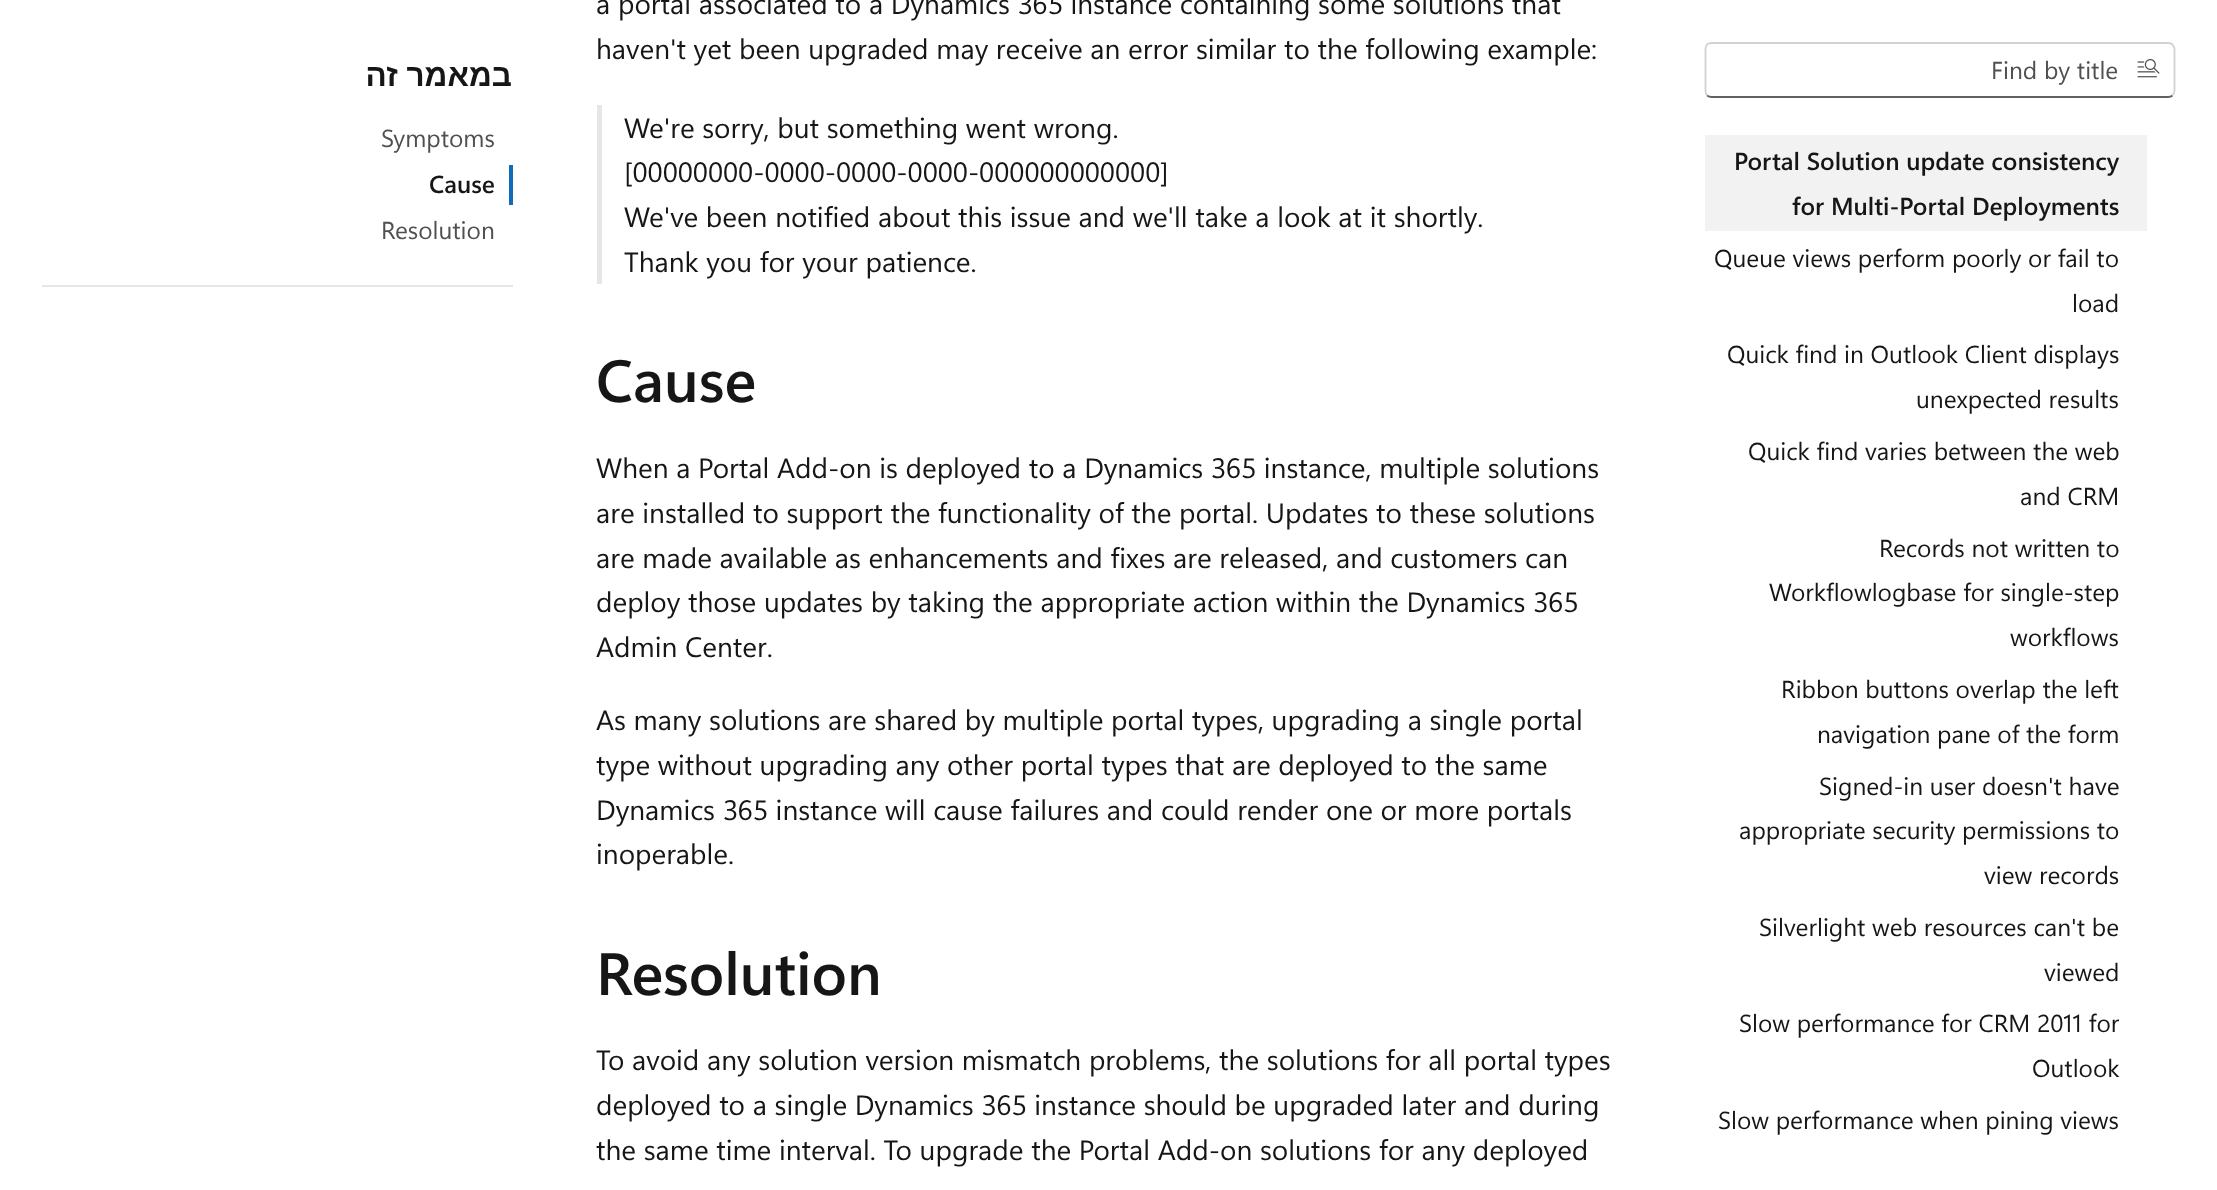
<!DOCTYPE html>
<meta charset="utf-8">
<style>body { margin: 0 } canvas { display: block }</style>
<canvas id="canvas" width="2217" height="1190"></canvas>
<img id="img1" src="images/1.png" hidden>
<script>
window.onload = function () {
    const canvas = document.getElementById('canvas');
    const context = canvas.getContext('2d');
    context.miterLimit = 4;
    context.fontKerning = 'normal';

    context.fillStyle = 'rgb(255, 255, 255)';
    context.fillRect(0, 0, 2217, 1190);
    context.fillStyle = 'rgb(230, 230, 230)';
    context.fillRect(42, 285, 471, 2);
    context.fillStyle = 'rgb(15, 108, 189)';
    context.fillRect(509, 165, 4, 40);
    context.fillStyle = 'rgb(230, 230, 230)';
    context.fillRect(597, 105, 5, 179);
    context.beginPath();
    context.moveTo(2172.5, 95.5);
    context.bezierCurveTo(2171.5, 96.5, 2170, 97, 2168, 97);
    context.lineTo(1711.5, 97);
    context.bezierCurveTo(1710, 97, 1708.5, 96.5, 1707, 95.5);
    context.strokeStyle = 'rgb(97, 97, 97)';
    context.lineWidth = 1.8;
    context.stroke();
    context.beginPath();
    context.moveTo(1707, 95.5);
    context.bezierCurveTo(1706, 94, 1705.5, 92.5, 1705.5, 91);
    context.lineTo(1705.5, 49);
    context.bezierCurveTo(1705.5, 47.5, 1706, 46, 1707, 44.5);
    context.bezierCurveTo(1708.5, 43.5, 1710, 43, 1711.5, 43);
    context.lineTo(2168, 43);
    context.bezierCurveTo(2170, 43, 2171.5, 43.5, 2172.5, 44.5);
    context.bezierCurveTo(2173.5, 46, 2174.5, 47.5, 2174.5, 49);
    context.lineTo(2174.5, 91);
    context.bezierCurveTo(2174.5, 92.5, 2173.5, 94, 2172.5, 95.5);
    context.strokeStyle = 'rgb(209, 209, 209)';
    context.stroke();
    context.drawImage(document.getElementById('img1'), 2137, 59, 23, 19);
    context.fillStyle = 'rgb(242, 242, 242)';
    context.fillRect(1705, 135, 442, 96);
    context.direction = 'rtl';
    context.font = 'bold 31.5px Liberation Sans';
    context.fillStyle = 'rgb(22, 22, 22)';
    context.fillText('במאמר זה', 512, 86);
    context.direction = 'ltr';
    context.font = '24.5px Segoe UI';
    context.fillStyle = 'rgb(80, 80, 80)';
    context.fillText('Symptoms', 381, 147);
    context.font = '600 24.5px Segoe UI';
    context.fillStyle = 'rgb(22, 22, 22)';
    context.fillText('Cause', 429, 193);
    context.font = '24.5px Segoe UI';
    context.fillStyle = 'rgb(80, 80, 80)';
    context.fillText('Resolution', 381, 239);
    context.font = '28px Segoe UI';
    context.fillStyle = 'rgb(22, 22, 22)';
    context.fillText('a portal associated to a Dynamics 365 instance containing some solutions that', 596, 14);
    context.fillText('haven\'t yet been upgraded may receive an error similar to the following example:', 596, 59);
    context.fillText('We\'re sorry, but something went wrong.', 624, 138);
    context.fillText('[00000000-0000-0000-0000-000000000000]', 624, 182);
    context.fillText('We\'ve been notified about this issue and we\'ll take a look at it shortly.', 624, 227);
    context.fillText('Thank you for your patience.', 624, 272);
    context.font = '600 59.5px Segoe UI';
    context.fillText('Cause', 596, 402);
    context.font = '28px Segoe UI';
    context.fillText('When a Portal Add-on is deployed to a Dynamics 365 instance, multiple solutions', 596, 478);
    context.fillText('are installed to support the functionality of the portal. Updates to these solutions', 596, 523);
    context.fillText('are made available as enhancements and fixes are released, and customers can', 596, 568);
    context.fillText('deploy those updates by taking the appropriate action within the Dynamics 365', 596, 612);
    context.fillText('Admin Center.', 596, 657);
    context.fillText('As many solutions are shared by multiple portal types, upgrading a single portal', 596, 730);
    context.fillText('type without upgrading any other portal types that are deployed to the same', 596, 775);
    context.fillText('Dynamics 365 instance will cause failures and could render one or more portals', 596, 820);
    context.fillText('inoperable.', 596, 864);
    context.font = '600 59.5px Segoe UI';
    context.fillText('Resolution', 596, 995);
    context.font = '28px Segoe UI';
    context.fillText('To avoid any solution version mismatch problems, the solutions for all portal types', 596, 1070);
    context.fillText('deployed to a single Dynamics 365 instance should be upgraded later and during', 596, 1115);
    context.fillText('the same time interval. To upgrade the Portal Add-on solutions for any deployed', 596, 1160);
    context.font = '24.5px Segoe UI';
    context.fillStyle = 'rgb(80, 80, 80)';
    context.fillText('Find by title', 1991, 79);
    context.font = '600 24.5px Segoe UI';
    context.fillStyle = 'rgb(22, 22, 22)';
    context.fillText('Portal Solution update consistency', 1734, 170);
    context.fillText('for Multi-Portal Deployments', 1792, 215);
    context.font = '24.5px Segoe UI';
    context.fillText('Queue views perform poorly or fail to', 1714, 267);
    context.fillText('load', 2072, 312);
    context.fillText('Quick find in Outlook Client displays', 1727, 363);
    context.fillText('unexpected results', 1916, 408);
    context.fillText('Quick find varies between the web', 1748, 460);
    context.fillText('and CRM', 2020, 505);
    context.fillText('Records not written to', 1879, 557);
    context.fillText('Workflowlogbase for single-step', 1769, 601);
    context.fillText('workflows', 2010, 646);
    context.fillText('Ribbon buttons overlap the left', 1781, 698);
    context.fillText('navigation pane of the form', 1817, 743);
    context.fillText('Signed-in user doesn\'t have', 1819, 795);
    context.fillText('appropriate security permissions to', 1739, 839);
    context.fillText('view records', 1984, 884);
    context.fillText('Silverlight web resources can\'t be', 1759, 936);
    context.fillText('viewed', 2044, 981);
    context.fillText('Slow performance for CRM 2011 for', 1739, 1032);
    context.fillText('Outlook', 2032, 1077);
    context.fillText('Slow performance when pining views', 1718, 1129);
};
</script>
